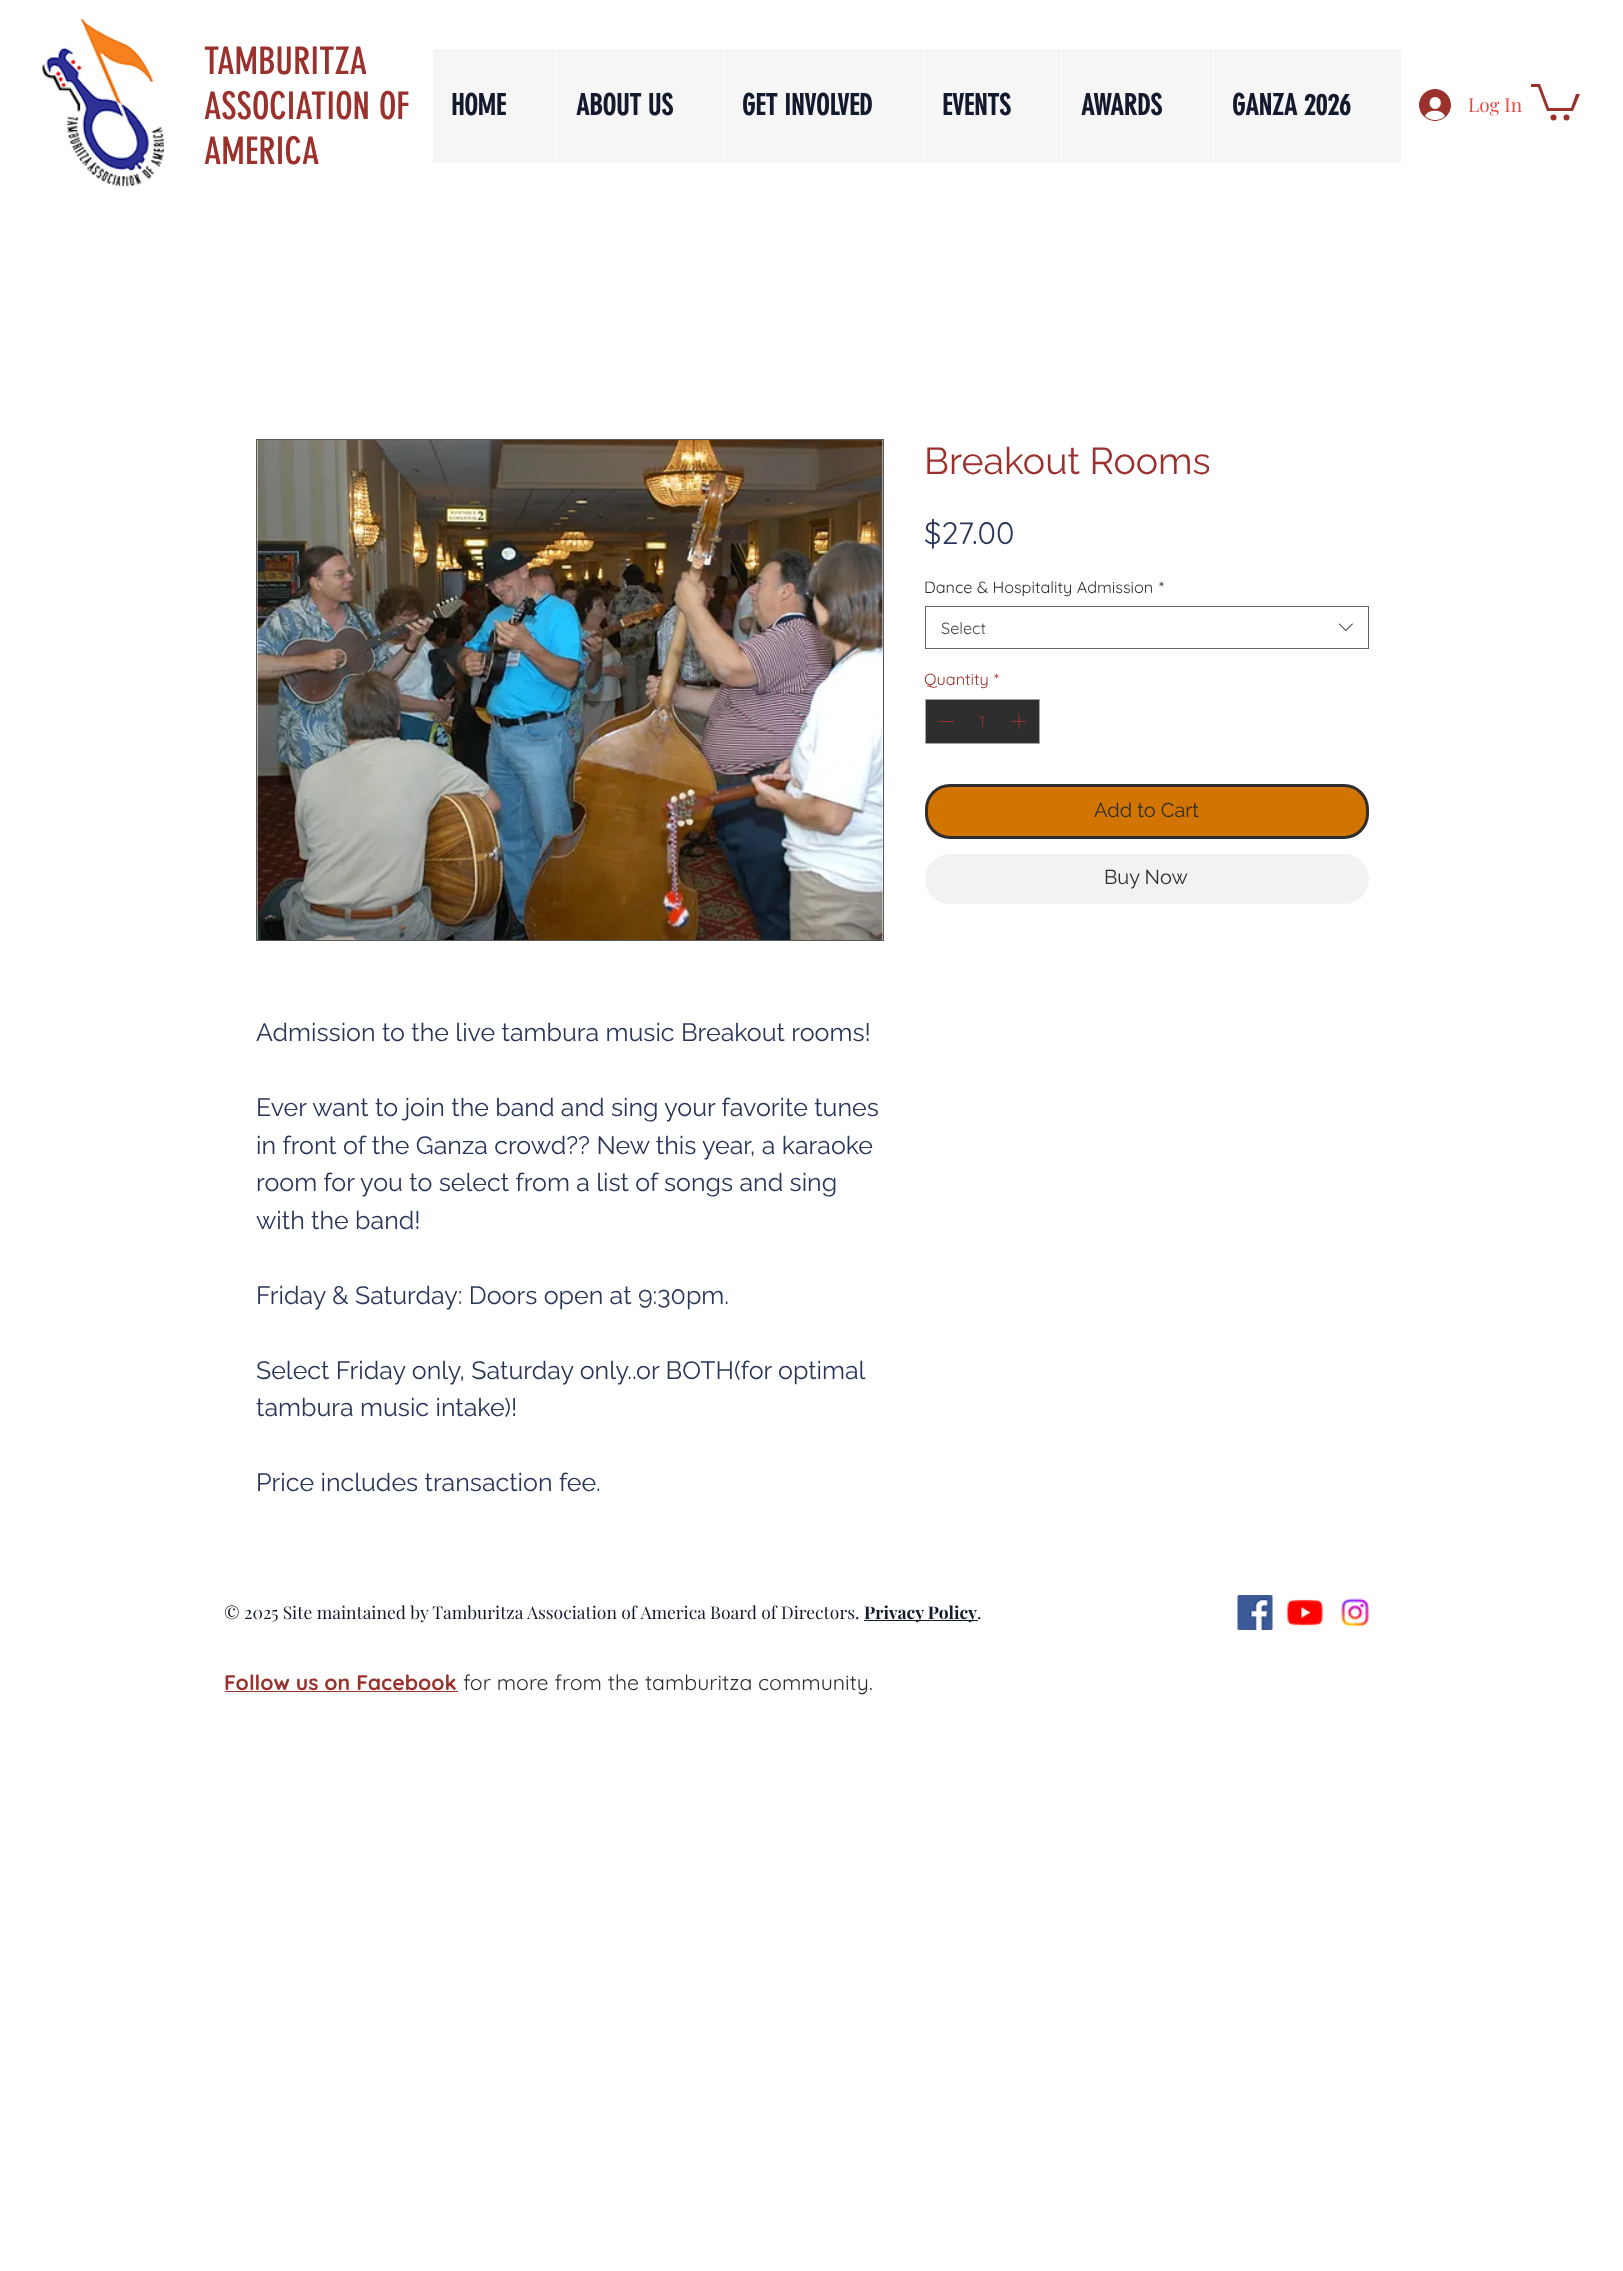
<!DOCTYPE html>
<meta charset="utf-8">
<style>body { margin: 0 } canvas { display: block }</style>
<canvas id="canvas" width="1623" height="2271"></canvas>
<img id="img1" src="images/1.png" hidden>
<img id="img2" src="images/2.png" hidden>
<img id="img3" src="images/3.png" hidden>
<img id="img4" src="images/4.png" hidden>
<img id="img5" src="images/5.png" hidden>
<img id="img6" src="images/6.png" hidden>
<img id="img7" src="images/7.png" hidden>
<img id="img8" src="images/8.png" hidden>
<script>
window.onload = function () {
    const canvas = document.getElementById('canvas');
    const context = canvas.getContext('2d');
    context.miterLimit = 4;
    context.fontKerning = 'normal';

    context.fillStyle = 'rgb(255, 255, 255)';
    context.fillRect(0, 0, 1623, 2271);
    context.drawImage(document.getElementById('img1'), 42, 18, 122, 169);
    context.fillStyle = 'rgb(246, 246, 246)';
    context.fillRect(433, 49, 968, 114);
    context.fillStyle = 'rgb(255, 255, 255)';
    context.fillRect(556, 49, 1, 114);
    context.fillRect(723, 49, 1, 114);
    context.fillRect(923, 49, 1, 114);
    context.fillRect(1061, 49, 1, 114);
    context.fillRect(1213, 49, 1, 114);
    context.drawImage(document.getElementById('img2'), 1419, 89, 32, 32);
    context.fillStyle = 'rgb(155, 49, 45)';
    context.beginPath();
    context.moveTo(1580, 94);
    context.lineTo(1573, 111);
    context.lineTo(1547, 111);
    context.lineTo(1538, 87);
    context.lineTo(1531, 87);
    context.lineTo(1531, 84);
    context.lineTo(1540, 84);
    context.lineTo(1549, 108);
    context.lineTo(1571, 108);
    context.lineTo(1576, 94);
    context.fill();
    context.beginPath();
    context.arc(1566.5, 117.5, 3, 0, 2 * Math.PI);
    context.fill();
    context.beginPath();
    context.arc(1553.5, 117.5, 3, 0, 2 * Math.PI);
    context.fill();
    context.strokeStyle = 'rgb(102, 102, 102)';
    context.strokeRect(925.5, 606.5, 443, 42);
    context.drawImage(document.getElementById('img3'), 1338, 623, 15, 9);
    context.fillStyle = 'rgb(47, 46, 46)';
    context.beginPath();
    context.rect(925.5, 699.5, 114, 44);
    context.fill();
    context.strokeStyle = 'rgb(164, 164, 164)';
    context.stroke();
    context.fillStyle = 'rgb(155, 49, 45)';
    context.fillRect(939, 721, 15, 1);
    context.drawImage(document.getElementById('img4'), 1011, 713, 16, 16);
    context.fillStyle = 'rgb(209, 116, 0)';
    context.beginPath();
    context.roundRect(926.5, 785.5, 441, 52, 23.5);
    context.fill();
    context.strokeStyle = 'rgb(47, 46, 46)';
    context.lineWidth = 3;
    context.stroke();
    context.fillStyle = 'rgb(242, 242, 242)';
    context.beginPath();
    context.roundRect(925, 854, 444, 50, 25);
    context.fill();
    context.strokeStyle = 'rgb(89, 88, 88)';
    context.lineWidth = 1;
    context.strokeRect(256.5, 439.5, 627, 501);
    context.drawImage(document.getElementById('img5'), 257, 440, 626, 500);
    context.fillStyle = 'rgb(20, 26, 45)';
    context.fillRect(864, 1620, 114, 1);
    context.drawImage(document.getElementById('img6'), 1237, 1595, 36, 35);
    context.drawImage(document.getElementById('img7'), 1287, 1599, 36, 27);
    context.drawImage(document.getElementById('img8'), 1341, 1598, 28, 29);
    context.fillStyle = 'rgb(155, 49, 45)';
    context.fillRect(225, 1691, 233, 1);
    context.font = '37.5px "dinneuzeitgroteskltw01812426"';
    context.fillText('TAMBURITZA', 204, 74);
    context.fillText('ASSOCIATION OF', 204, 119);
    context.fillText('AMERICA', 204, 164);
    context.font = 'bold 28.75px "dinneuzeitgroteskltw01812426"';
    context.fillStyle = 'rgb(20, 26, 45)';
    context.fillText('HOME', 451, 115);
    context.fillText('ABOUT US', 576, 115);
    context.fillText('GET INVOLVED', 742, 115);
    context.fillText('EVENTS', 942, 115);
    context.fillText('AWARDS', 1081, 115);
    context.fillText('GANZA 2026', 1232, 115);
    context.font = '19px Playfair Display';
    context.fillStyle = 'rgb(232, 74, 67)';
    context.fillText('Log In', 1468, 112);
    context.font = '37.5px Raleway';
    context.fillStyle = 'rgb(155, 49, 45)';
    context.fillText('Breakout Rooms', 924, 474);
    context.font = '31px Quicksand';
    context.fillStyle = 'rgb(41, 53, 89)';
    context.fillText('$27.00', 924, 544);
    context.font = '16.25px Quicksand';
    context.fillStyle = 'rgb(47, 46, 46)';
    context.fillText('Dance & Hospitality Admission', 924, 593);
    context.fillText('*', 1159, 593);
    context.fillStyle = 'rgb(68, 68, 68)';
    context.fillText('Select', 941, 634);
    context.fillStyle = 'rgb(155, 49, 45)';
    context.fillText('Quantity', 924, 685);
    context.fillText('*', 994, 685);
    context.fillText('1', 979, 727);
    context.font = '20px Raleway';
    context.fillStyle = 'rgb(47, 46, 46)';
    context.fillText('Add to Cart', 1094, 817);
    context.fillText('Buy Now', 1104, 884);
    context.font = '25px Raleway';
    context.fillStyle = 'rgb(41, 53, 89)';
    context.fillText('Admission to the live tambura music Breakout rooms!', 256, 1041);
    context.fillText('Ever want to join the band and sing your favorite tunes', 256, 1116);
    context.fillText('in front of the Ganza crowd?? New this year, a karaoke', 256, 1154);
    context.fillText('room for you to select from a list of songs and sing', 256, 1191);
    context.fillText('with the band!', 256, 1229);
    context.fillText('Friday & Saturday: Doors open at 9:30pm.', 256, 1304);
    context.fillText('Select Friday only, Saturday only..or BOTH(for optimal', 256, 1379);
    context.fillText('tambura music intake)!', 256, 1416);
    context.fillText('Price includes transaction fee.', 256, 1491);
    context.font = '17.5px Playfair Display';
    context.fillStyle = 'rgb(20, 26, 45)';
    context.fillText('© 2025 Site maintained by Tamburitza Association of America Board of Directors.', 224, 1619);
    context.font = 'bold 17.5px Playfair Display';
    context.fillText('Privacy Policy', 864, 1619);
    context.font = '17.5px Playfair Display';
    context.fillText('.', 977, 1619);
    context.font = 'bold 21.25px Quicksand';
    context.fillStyle = 'rgb(155, 49, 45)';
    context.fillText('Follow us on Facebook', 224, 1690);
    context.font = '21.25px Quicksand';
    context.fillStyle = 'rgb(47, 46, 46)';
    context.fillText('for more from the tamburitza community.', 463, 1690);
};
</script>
